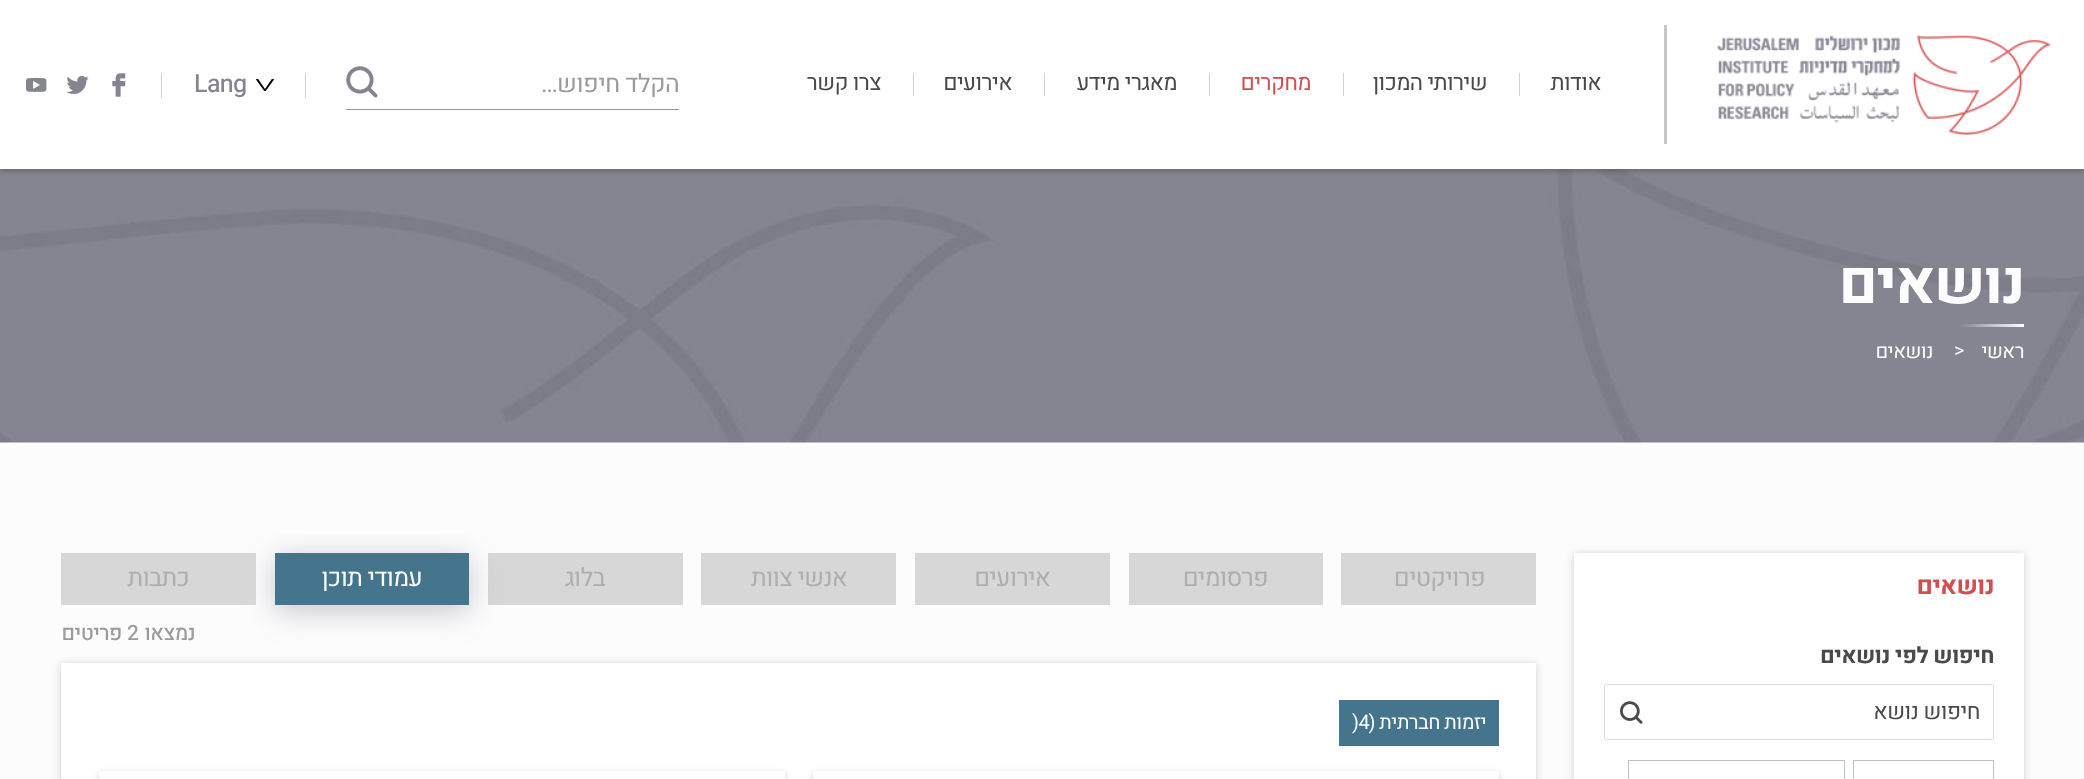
<!DOCTYPE html>
<meta charset="utf-8">
<style>body { margin: 0 } canvas { display: block }</style>
<canvas id="canvas" width="2084" height="779"></canvas>
<img id="img1" src="images/6.png" hidden>
<img id="img2" src="images/1.png" hidden>
<img id="img3" src="images/2.png" hidden>
<img id="img4" src="images/3.png" hidden>
<img id="img5" src="images/4.png" hidden>
<img id="img6" src="images/5.png" hidden>
<img id="img7" src="images/7.png" hidden>
<script>
window.onload = function () {
    const canvas = document.getElementById('canvas');
    const context = canvas.getContext('2d');
    context.miterLimit = 4;
    context.fontKerning = 'normal';
    let gradient;

    context.fillStyle = 'rgb(252, 252, 253)';
    context.fillRect(0, 0, 2084, 779);
    context.drawImage(document.getElementById('img1'), 0, 169, 2084, 274);
    context.fillStyle = 'rgba(0, 0, 0, 0.22)';
    context.filter = 'blur(2.5px)';
    context.beginPath();
    context.rect(0, 3, 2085, 168);
    context.fill();
    context.filter = 'none';
    context.fillStyle = 'rgb(255, 255, 255)';
    context.fillRect(0, 0, 2084, 169);
    context.fillStyle = 'rgb(199, 199, 199)';
    context.fillRect(1664, 25, 3, 119);
    context.drawImage(document.getElementById('img2'), 1717, 35, 335, 100);
    context.fillStyle = 'rgb(210, 210, 210)';
    context.fillRect(1519, 73, 1, 23);
    context.fillRect(1343, 73, 1, 23);
    context.fillRect(1209, 73, 1, 23);
    context.fillRect(1044, 73, 1, 23);
    context.fillRect(913, 73, 1, 23);
    context.fillStyle = 'rgb(151, 151, 151)';
    context.fillRect(346, 109, 333, 1);
    context.drawImage(document.getElementById('img3'), 346, 66, 32, 32);
    context.fillStyle = 'rgb(210, 210, 210)';
    context.fillRect(305, 73, 1, 25);
    context.save();
    context.beginPath();
    context.rect(256, 79, 18, 12);
    context.clip();
    context.fillStyle = 'rgb(0, 0, 0)';
    context.beginPath();
    context.moveTo(272.5, 78);
    context.lineTo(274, 79.5);
    context.lineTo(265, 92);
    context.lineTo(256, 79.5);
    context.lineTo(257.5, 78);
    context.lineTo(265, 89);
    context.closePath();
    context.fill('evenodd');
    context.restore();
    context.fillRect(161, 73, 1, 25);
    context.drawImage(document.getElementById('img4'), 112, 73, 14, 24);
    context.drawImage(document.getElementById('img5'), 66, 75, 23, 19);
    context.drawImage(document.getElementById('img6'), 26, 77, 21, 15);
    gradient = context.createLinearGradient(1960, 325, 2024, 325);
    gradient.addColorStop(0, 'rgb(133, 133, 145)');
    gradient.addColorStop(1, 'rgb(255, 255, 255)');
    context.fillStyle = gradient;
    context.fillRect(1960, 324, 64, 3);
    context.fillStyle = 'rgba(0, 0, 0, 0.18)';
    context.filter = 'blur(4px)';
    context.beginPath();
    context.rect(1574, 554, 450, 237);
    context.fill();
    context.filter = 'none';
    context.fillStyle = 'rgb(255, 255, 255)';
    context.fillRect(1574, 553, 450, 226);
    context.drawImage(document.getElementById('img7'), 1620, 701, 23, 23);
    context.beginPath();
    context.roundRect(1604.5, 684.5, 389, 55, 2);
    context.strokeStyle = 'rgb(220, 220, 220)';
    context.stroke();
    context.strokeStyle = 'rgb(187, 194, 194)';
    context.strokeRect(1853.5, 760.5, 140, 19);
    context.strokeRect(1628.5, 760.5, 216, 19);
    context.fillStyle = 'rgb(215, 215, 215)';
    context.fillRect(1341, 553, 195, 52);
    context.fillRect(1129, 553, 194, 52);
    context.fillRect(915, 553, 195, 52);
    context.fillRect(701, 553, 195, 52);
    context.fillRect(488, 553, 195, 52);
    context.save();
    context.beginPath();
    context.rect(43, 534, 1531, 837);
    context.clip();
    context.fillStyle = 'rgba(135, 135, 146, 0.45)';
    context.filter = 'blur(15px)';
    context.beginPath();
    context.rect(275, 559, 194, 52);
    context.fill();
    context.filter = 'none';
    context.restore();
    context.fillStyle = 'rgb(68, 117, 141)';
    context.fillRect(275, 553, 194, 52);
    context.fillStyle = 'rgb(215, 215, 215)';
    context.fillRect(61, 553, 195, 52);
    context.fillStyle = 'rgba(0, 0, 0, 0.18)';
    context.filter = 'blur(4px)';
    context.beginPath();
    context.rect(61, 664, 1475, 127);
    context.fill();
    context.filter = 'none';
    context.fillStyle = 'rgb(255, 255, 255)';
    context.fillRect(61, 663, 1475, 116);
    context.fillStyle = 'rgb(68, 117, 141)';
    context.fillRect(1339, 700, 160, 46);
    context.fillStyle = 'rgba(0, 0, 0, 0.18)';
    context.filter = 'blur(3px)';
    context.beginPath();
    context.rect(813, 773, 686, 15);
    context.fill();
    context.filter = 'none';
    context.fillStyle = 'rgb(255, 255, 255)';
    context.fillRect(813, 771, 686, 8);
    context.fillStyle = 'rgba(0, 0, 0, 0.18)';
    context.filter = 'blur(3px)';
    context.beginPath();
    context.rect(99, 773, 686, 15);
    context.fill();
    context.filter = 'none';
    context.fillStyle = 'rgb(255, 255, 255)';
    context.fillRect(99, 771, 686, 8);
    context.letterSpacing = '-0.6px';
    context.direction = 'rtl';
    context.font = '22.5px Heebo';
    context.fillStyle = 'rgb(74, 74, 74)';
    context.fillText('אודות', 1601, 90);
    context.fillText('שירותי המכון', 1487, 90);
    context.fillStyle = 'rgb(209, 79, 83)';
    context.fillText('מחקרים', 1311, 90);
    context.fillStyle = 'rgb(74, 74, 74)';
    context.fillText('מאגרי מידע', 1177, 90);
    context.fillText('אירועים', 1012, 90);
    context.fillText('צרו קשר', 881, 90);
    context.font = '25px Heebo';
    context.fillStyle = 'rgb(155, 155, 155)';
    context.fillText('הקלד חיפוש…', 679, 92);
    context.direction = 'ltr';
    context.font = '500 25px Heebo';
    context.fillStyle = 'rgb(133, 133, 145)';
    context.fillText('Lang', 194, 92);
    context.letterSpacing = '-1.5px';
    context.direction = 'rtl';
    context.font = 'bold 60px Heebo';
    context.fillStyle = 'rgb(252, 252, 253)';
    context.fillText('נושאים', 2024, 303);
    context.letterSpacing = '-0.5px';
    context.font = '20px Heebo';
    context.fillText('ראשי', 2024, 358);
    context.direction = 'ltr';
    context.fillText('>', 1954, 357);
    context.direction = 'rtl';
    context.fillText('נושאים', 1933, 358);
    context.letterSpacing = '-0.6px';
    context.font = 'bold 25px Heebo';
    context.fillStyle = 'rgb(209, 79, 83)';
    context.fillText('נושאים', 1994, 594);
    context.letterSpacing = '-0.5px';
    context.font = 'bold 22.5px Heebo';
    context.fillStyle = 'rgb(74, 74, 74)';
    context.fillText('חיפוש לפי נושאים', 1994, 663);
    context.font = '22.5px Heebo';
    context.fillText('חיפוש נושא', 1980, 719);
    context.letterSpacing = '-0.75px';
    context.font = '25px Heebo';
    context.fillStyle = 'rgb(174, 174, 174)';
    context.fillText('פרויקטים', 1485, 586);
    context.fillText('פרסומים', 1268, 586);
    context.fillText('אירועים', 1050, 586);
    context.fillText('אנשי צוות', 847, 586);
    context.fillText('בלוג', 605, 586);
    context.fillStyle = 'rgb(252, 252, 253)';
    context.fillText('עמודי תוכן', 422, 586);
    context.fillStyle = 'rgb(174, 174, 174)';
    context.fillText('כתבות', 189, 586);
    context.letterSpacing = '-0.5px';
    context.font = '500 21px Heebo';
    context.fillStyle = 'rgb(155, 155, 155)';
    context.fillText('נמצאו', 195, 640);
    context.direction = 'ltr';
    context.fillText('2', 127, 640);
    context.direction = 'rtl';
    context.fillText('פריטים', 122, 640);
    context.font = '20px Heebo';
    context.fillStyle = 'rgb(252, 252, 253)';
    context.fillText('יזמות חברתית (', 1486, 729);
    context.direction = 'ltr';
    context.fillText(')4', 1352, 729);
};
</script>
